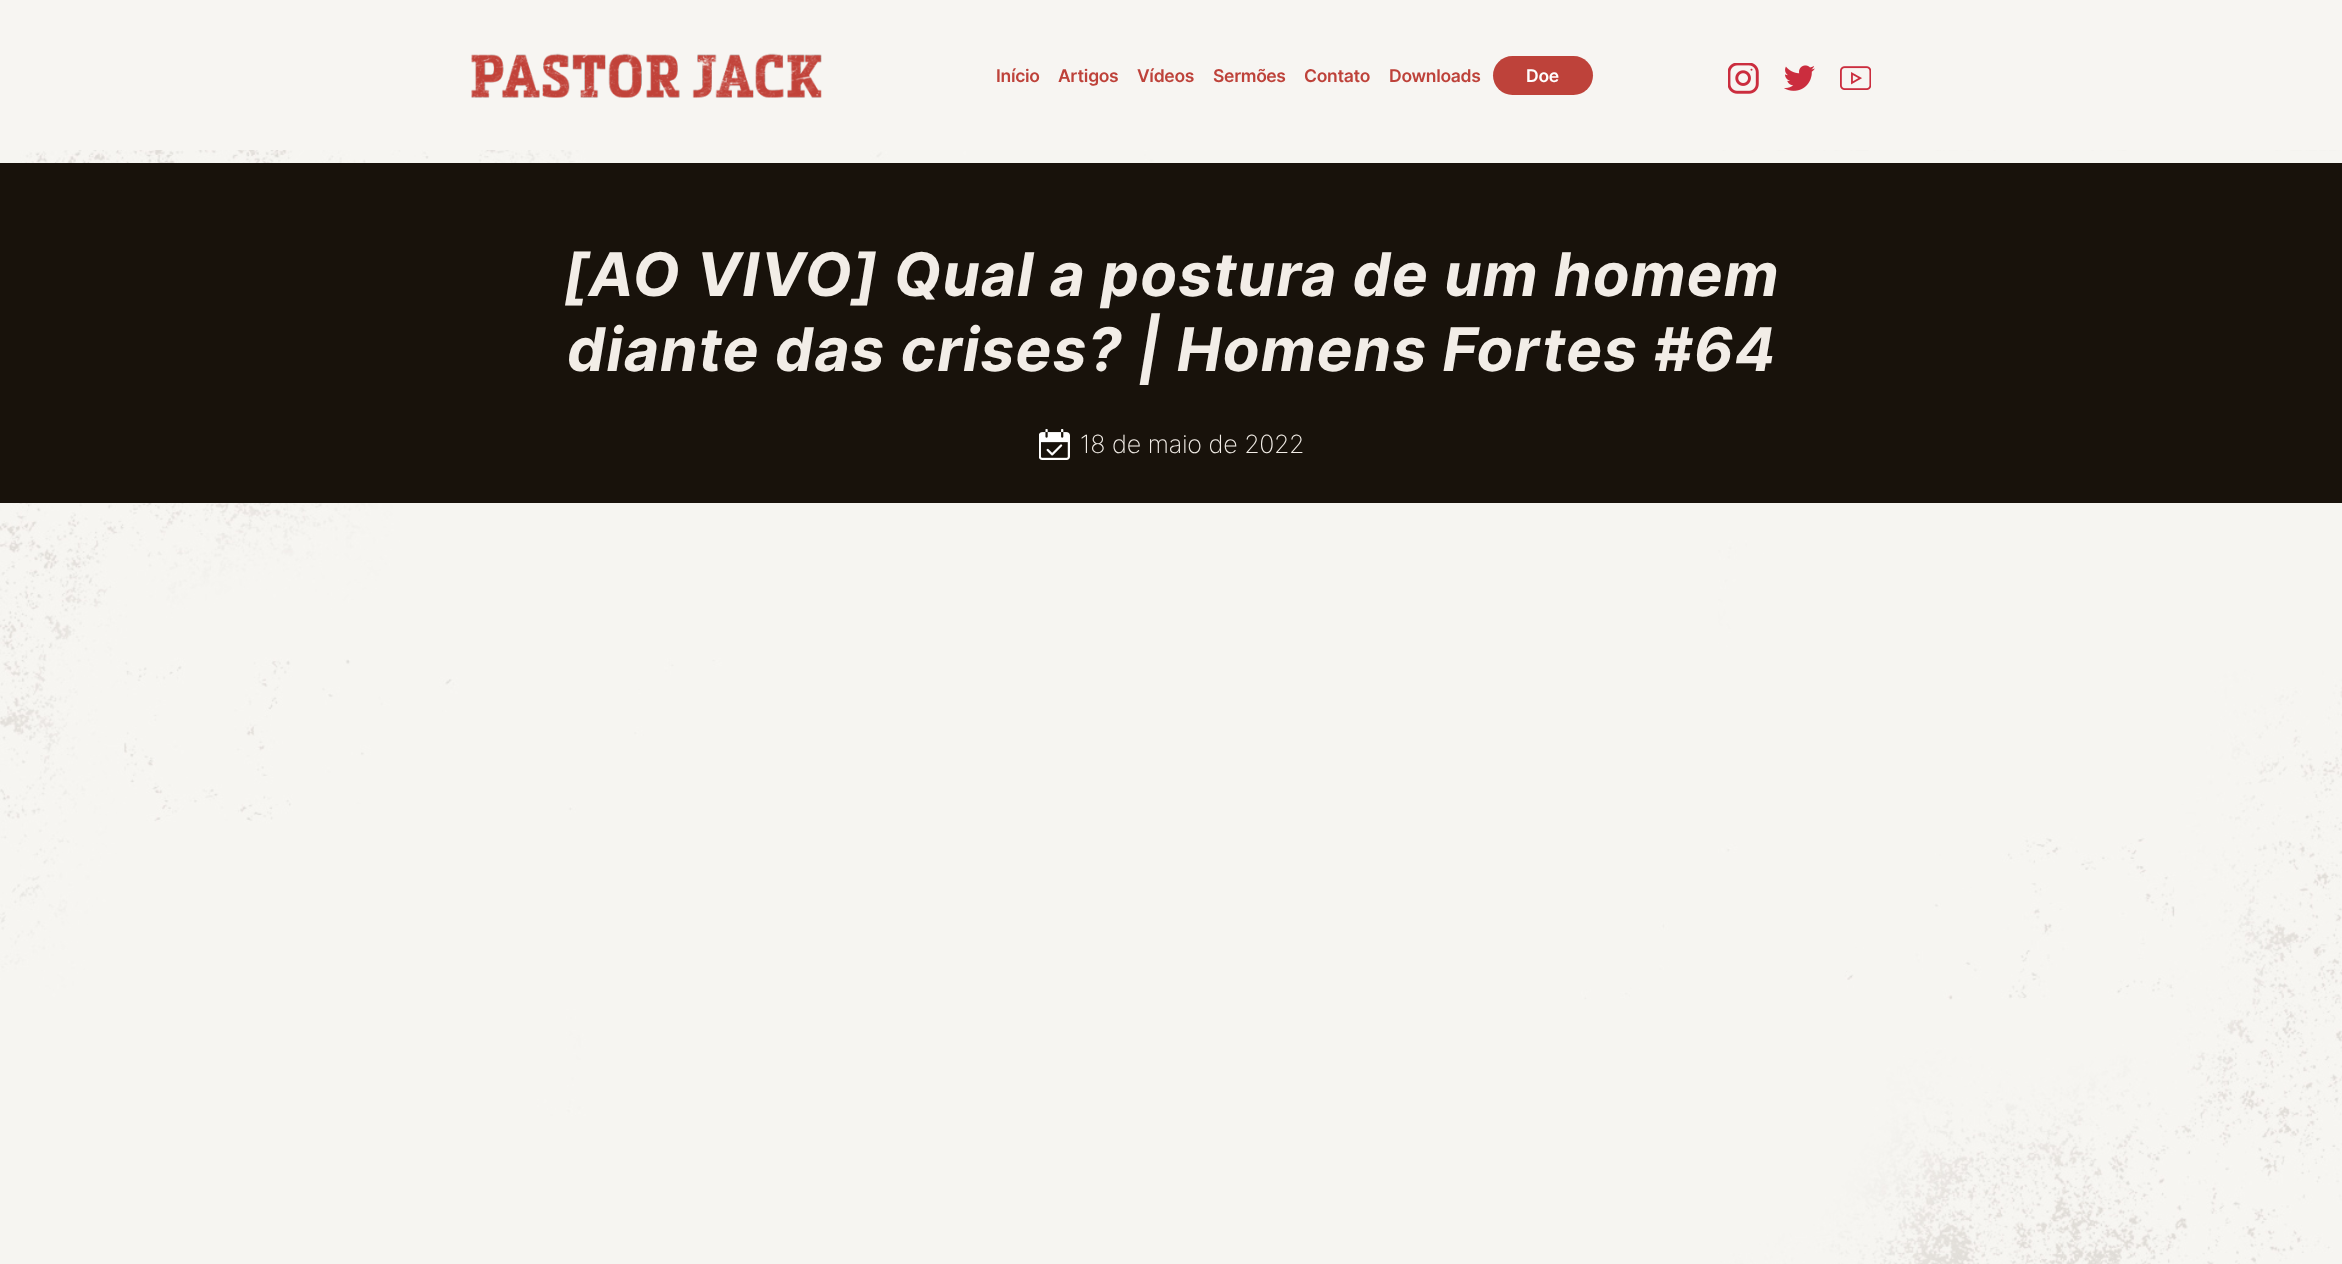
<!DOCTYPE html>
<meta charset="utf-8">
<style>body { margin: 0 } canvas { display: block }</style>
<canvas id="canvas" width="2342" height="1264"></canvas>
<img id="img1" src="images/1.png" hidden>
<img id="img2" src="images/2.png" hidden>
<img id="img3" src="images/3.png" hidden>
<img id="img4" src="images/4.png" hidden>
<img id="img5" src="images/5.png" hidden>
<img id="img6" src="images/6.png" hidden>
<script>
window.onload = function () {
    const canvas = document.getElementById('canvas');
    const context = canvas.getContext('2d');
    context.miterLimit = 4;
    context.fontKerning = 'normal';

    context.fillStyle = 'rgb(247, 245, 242)';
    context.fillRect(0, 0, 2342, 1264);
    context.drawImage(document.getElementById('img1'), 471, 53, 351, 45);
    context.fillStyle = 'rgb(190, 66, 58)';
    context.beginPath();
    context.roundRect(1493, 56, 100, 39, 19.5);
    context.fill();
    context.drawImage(document.getElementById('img2'), 1728, 63, 31, 31);
    context.drawImage(document.getElementById('img3'), 1784, 65, 31, 26);
    context.drawImage(document.getElementById('img4'), 1840, 66, 31, 24);
    context.drawImage(document.getElementById('img5'), 0, 150, 2342, 1114);
    context.fillStyle = 'rgb(24, 18, 11)';
    context.fillRect(0, 163, 2342, 340);
    context.drawImage(document.getElementById('img6'), 1039, 429, 31, 31);
    context.letterSpacing = '-0.3px';
    context.font = '600 17.5px Inter';
    context.fillStyle = 'rgb(190, 66, 58)';
    context.fillText('Início', 996, 82);
    context.fillText('Artigos', 1058, 82);
    context.fillText('Vídeos', 1137, 82);
    context.fillText('Sermões', 1213, 82);
    context.fillText('Contato', 1304, 82);
    context.fillText('Downloads', 1389, 82);
    context.fillStyle = 'rgb(255, 255, 255)';
    context.fillText('Doe', 1526, 82);
    context.letterSpacing = '1.25px';
    context.font = 'italic bold 60px Inter';
    context.fillStyle = 'rgb(242, 237, 231)';
    context.fillText('[AO VIVO] Qual a postura de um homem', 563, 296);
    context.fillText('diante das crises? | Homens Fortes #64', 567, 371);
    context.letterSpacing = '-0.3px';
    context.font = '200 25px Inter';
    context.fillText('18 de maio de 2022', 1080, 453);
};
</script>
